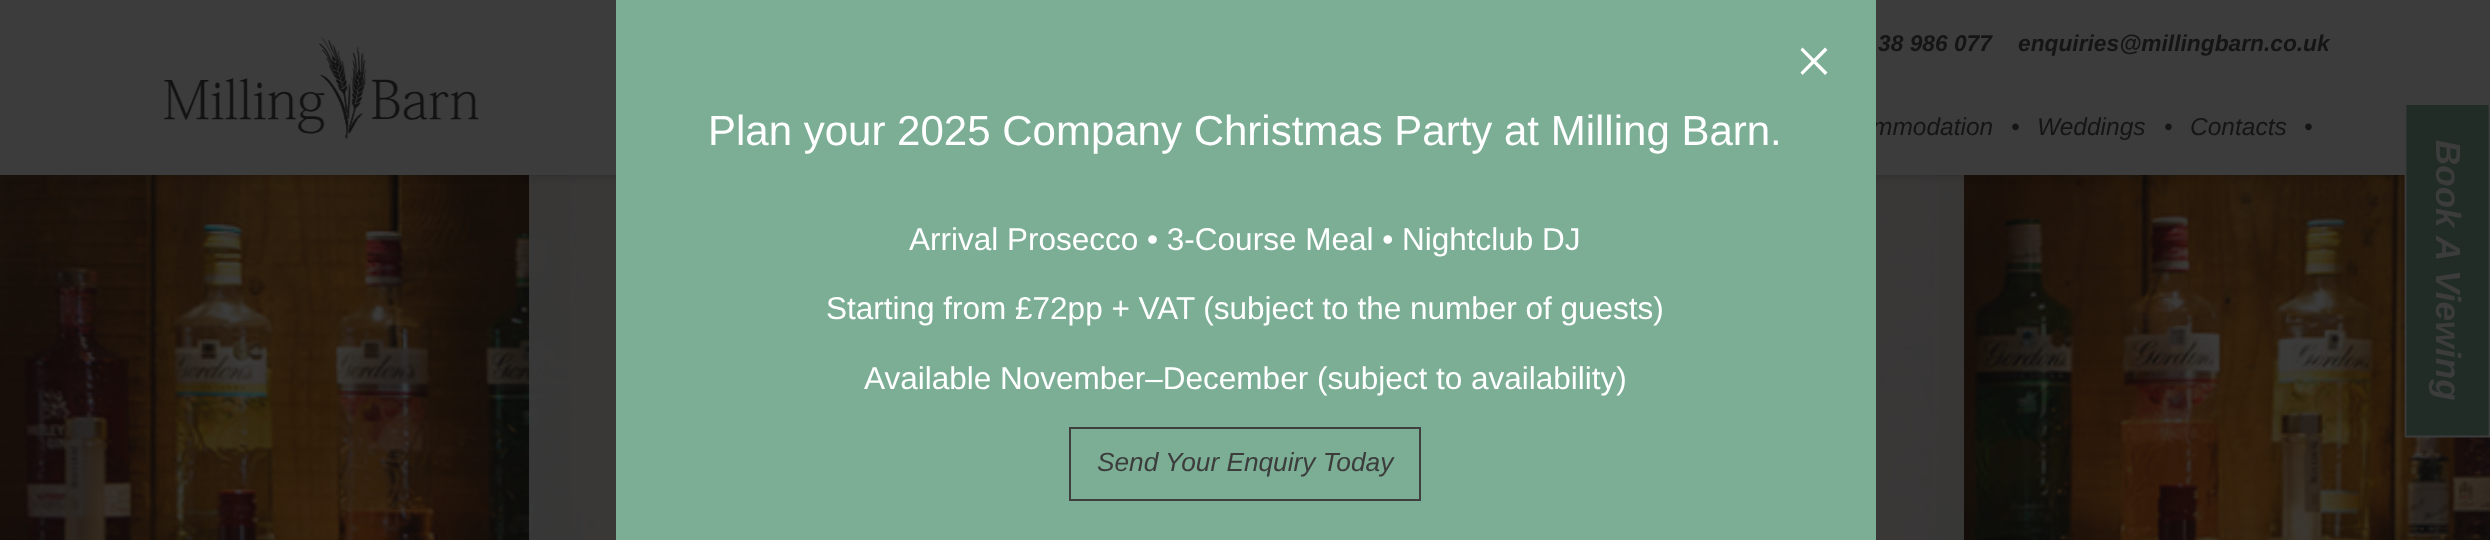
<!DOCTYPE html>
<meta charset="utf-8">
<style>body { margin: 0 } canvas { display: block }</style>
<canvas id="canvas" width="2490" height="540"></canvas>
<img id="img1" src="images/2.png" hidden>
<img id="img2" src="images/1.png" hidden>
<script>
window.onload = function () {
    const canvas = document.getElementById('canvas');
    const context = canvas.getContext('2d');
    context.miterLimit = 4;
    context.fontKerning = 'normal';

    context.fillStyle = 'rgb(255, 255, 255)';
    context.fillRect(0, 0, 2490, 540);
    context.drawImage(document.getElementById('img1'), 0, 175, 2490, 365);
    context.fillStyle = 'rgba(60, 60, 60, 0.9)';
    context.fillRect(529, 175, 1435, 365);
    context.fillStyle = 'rgba(9, 9, 9, 0.25)';
    context.filter = 'blur(4.5px)';
    context.beginPath();
    context.rect(0, 0, 2490, 175);
    context.fill();
    context.filter = 'none';
    context.fillStyle = 'rgb(60, 60, 60)';
    context.fillRect(0, 0, 2490, 175);
    context.drawImage(document.getElementById('img2'), 164, 36, 315, 103);
    context.fillStyle = 'rgb(33, 44, 39)';
    context.fillRect(2405, 103, 85, 333);
    context.beginPath();
    context.moveTo(2489.5, 104);
    context.lineTo(2489.5, 436.5);
    context.lineTo(2405.5, 436.5);
    context.lineTo(2405.5, 104);
    context.closePath();
    context.strokeStyle = 'rgb(60, 60, 60)';
    context.lineWidth = 1.8;
    context.stroke();
    context.font = 'italic bold 22.75px Liberation Sans';
    context.fillStyle = 'rgb(21, 21, 21)';
    context.fillText('38 986 077', 1878, 51);
    context.fillText('enquiries@millingbarn.co.uk', 2018, 51);
    context.font = 'italic 24.5px Liberation Sans';
    context.fillText('mmodation', 1872, 135);
    context.fillStyle = 'rgb(123, 174, 149)';
    context.fillRect(616, 0, 1260, 540);
    context.fillStyle = 'rgb(255, 255, 255)';
    context.beginPath();
    context.moveTo(1802.5, 47.5);
    context.lineTo(1827.5, 72.5);
    context.lineTo(1825, 75);
    context.lineTo(1800.5, 50);
    context.closePath();
    context.fill();
    context.beginPath();
    context.moveTo(1825, 47.5);
    context.lineTo(1827.5, 50);
    context.lineTo(1802.5, 75);
    context.lineTo(1800.5, 72.5);
    context.closePath();
    context.fill();
    context.strokeStyle = 'rgb(63, 63, 63)';
    context.lineWidth = 2;
    context.strokeRect(1070, 428, 350, 72);
    context.font = 'italic 26.25px Liberation Sans';
    context.fillStyle = 'rgb(60, 60, 60)';
    context.fillText('Send Your Enquiry Today', 1097, 471);
    context.font = '31.5px Liberation Sans';
    context.fillStyle = 'rgb(255, 255, 255)';
    context.fillText('Available November–December (subject to availability)', 864, 389);
    context.fillText('Starting from £72pp + VAT (subject to the number of guests)', 826, 319);
    context.fillText('Arrival Prosecco • 3-Course Meal • Nightclub DJ', 909, 250);
    context.font = '42px Liberation Sans';
    context.fillText('Plan your 2025 Company Christmas Party at Milling Barn.', 708, 145);
    context.font = 'italic 24.5px Liberation Sans';
    context.fillStyle = 'rgb(21, 21, 21)';
    context.fillText('•', 2011, 135);
    context.fillText('Weddings', 2037, 135);
    context.fillText('•', 2164, 135);
    context.fillText('Contacts', 2190, 135);
    context.fillText('•', 2304, 135);
    context.font = 'italic bold 35px Liberation Sans';
    context.fillStyle = 'rgb(60, 60, 60)';
    context.save();
    context.translate(2436, 140);
    context.rotate(90 * Math.PI / 180);
    context.fillText('Book A Viewing', 0, 0);
    context.restore();
};
</script>
